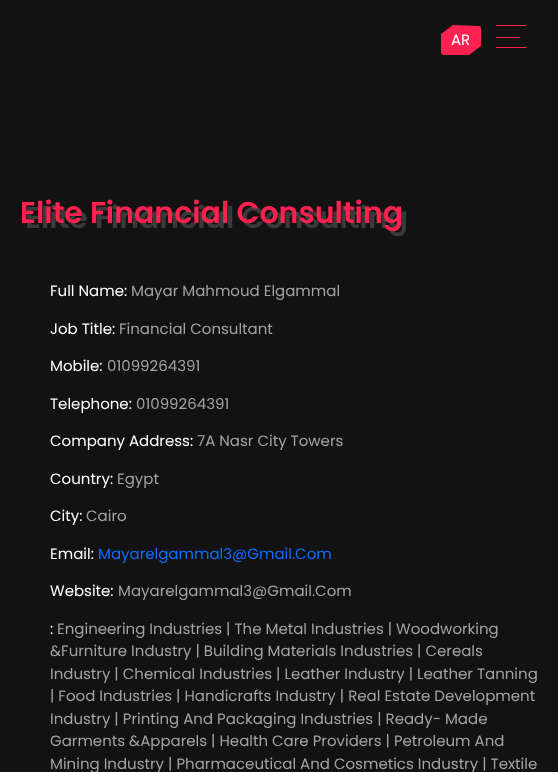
<!DOCTYPE html>
<meta charset="utf-8">
<style>body { margin: 0 } canvas { display: block }</style>
<canvas id="canvas" width="558" height="772"></canvas>
<script>
window.onload = function () {
    const canvas = document.getElementById('canvas');
    const context = canvas.getContext('2d');
    context.miterLimit = 4;
    context.fontKerning = 'normal';

    context.fillStyle = 'rgb(18, 18, 18)';
    context.fillRect(0, 0, 558, 772);
    context.fillStyle = 'rgb(255, 33, 79)';
    context.beginPath();
    context.moveTo(453, 25);
    context.lineTo(441, 34);
    context.lineTo(441, 52);
    context.bezierCurveTo(441, 54, 442, 55, 444, 55);
    context.lineTo(469, 55);
    context.lineTo(481, 46);
    context.bezierCurveTo(481, 43, 482, 27, 480, 26);
    context.closePath();
    context.fill();
    context.fillRect(496, 25, 30, 1);
    context.fillRect(496, 47, 30, 1);
    context.fillRect(496, 37, 24, 1);
    context.font = '15px Poppins';
    context.fillStyle = 'rgb(255, 255, 255)';
    context.fillText('AR', 451, 45);
    context.font = '600 30px Poppins';
    context.fillStyle = 'rgb(58, 58, 58)';
    context.fillText('Elite Financial Consulting', 25, 228);
    context.fillStyle = 'rgb(255, 33, 79)';
    context.fillText('Elite Financial Consulting', 20, 223);
    context.font = '15px Poppins';
    context.fillStyle = 'rgb(255, 255, 255)';
    context.fillText('Full Name:', 50, 296);
    context.fillStyle = 'rgb(163, 163, 163)';
    context.fillText('Mayar Mahmoud Elgammal', 131, 296);
    context.fillStyle = 'rgb(255, 255, 255)';
    context.fillText('Job Title:', 50, 334);
    context.fillStyle = 'rgb(163, 163, 163)';
    context.fillText('Financial Consultant', 119, 334);
    context.fillStyle = 'rgb(255, 255, 255)';
    context.fillText('Mobile:', 50, 371);
    context.fillStyle = 'rgb(163, 163, 163)';
    context.fillText('01099264391', 107, 371);
    context.fillStyle = 'rgb(255, 255, 255)';
    context.fillText('Telephone:', 50, 409);
    context.fillStyle = 'rgb(163, 163, 163)';
    context.fillText('01099264391', 136, 409);
    context.fillStyle = 'rgb(255, 255, 255)';
    context.fillText('Company Address:', 50, 446);
    context.fillStyle = 'rgb(163, 163, 163)';
    context.fillText('7A Nasr City Towers', 197, 446);
    context.fillStyle = 'rgb(255, 255, 255)';
    context.fillText('Country:', 50, 484);
    context.fillStyle = 'rgb(163, 163, 163)';
    context.fillText('Egypt', 117, 484);
    context.fillStyle = 'rgb(255, 255, 255)';
    context.fillText('City:', 50, 521);
    context.fillStyle = 'rgb(163, 163, 163)';
    context.fillText('Cairo', 86, 521);
    context.fillStyle = 'rgb(255, 255, 255)';
    context.fillText('Email:', 50, 559);
    context.fillStyle = 'rgb(13, 110, 253)';
    context.fillText('Mayarelgammal3@Gmail.Com', 98, 559);
    context.fillStyle = 'rgb(255, 255, 255)';
    context.fillText('Website:', 50, 596);
    context.fillStyle = 'rgb(163, 163, 163)';
    context.fillText('Mayarelgammal3@Gmail.Com', 118, 596);
    context.fillStyle = 'rgb(255, 255, 255)';
    context.fillText(':', 50, 634);
    context.fillStyle = 'rgb(163, 163, 163)';
    context.fillText('Engineering Industries | The Metal Industries | Woodworking', 57, 634);
    context.fillText('&Furniture Industry | Building Materials Industries | Cereals', 50, 656);
    context.fillText('Industry | Chemical Industries | Leather Industry | Leather Tanning', 50, 679);
    context.fillText('| Food Industries | Handicrafts Industry | Real Estate Development', 50, 701);
    context.fillText('Industry | Printing And Packaging Industries | Ready- Made', 50, 724);
    context.fillText('Garments &Apparels | Health Care Providers | Petroleum And', 50, 746);
    context.fillText('Mining Industry | Pharmaceutical And Cosmetics Industry | Textile', 50, 769);
};
</script>
